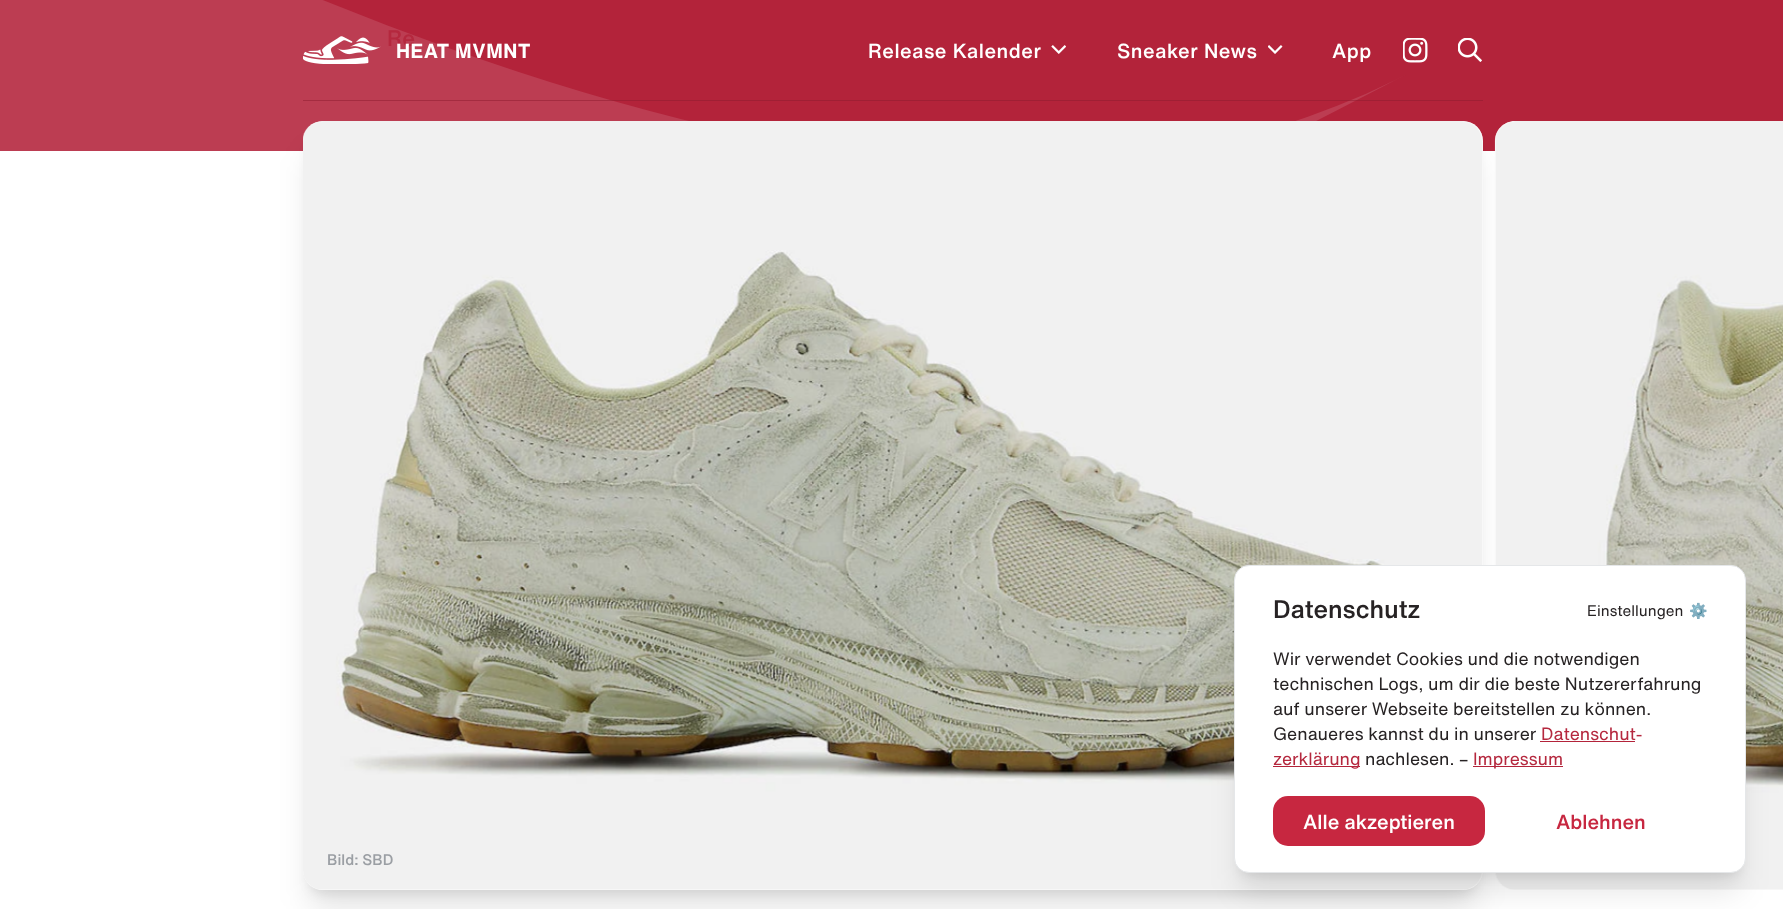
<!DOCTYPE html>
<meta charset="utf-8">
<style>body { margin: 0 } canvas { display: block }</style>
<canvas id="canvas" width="1783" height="909"></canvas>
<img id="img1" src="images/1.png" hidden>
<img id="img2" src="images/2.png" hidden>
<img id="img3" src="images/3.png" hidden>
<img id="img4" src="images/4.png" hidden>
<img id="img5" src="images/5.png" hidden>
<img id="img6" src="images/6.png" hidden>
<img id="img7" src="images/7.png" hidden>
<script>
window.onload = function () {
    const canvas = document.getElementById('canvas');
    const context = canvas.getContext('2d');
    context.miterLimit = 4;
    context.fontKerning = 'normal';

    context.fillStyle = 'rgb(255, 255, 255)';
    context.fillRect(0, 0, 1783, 909);
    context.fillStyle = 'rgb(179, 35, 58)';
    context.fillRect(322, 0, 1461, 151);
    context.save();
    context.beginPath();
    context.rect(0, 0, 1409, 151);
    context.clip();
    context.fillStyle = 'rgb(188, 61, 82)';
    context.beginPath();
    context.moveTo(-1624, 135);
    context.bezierCurveTo(-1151, -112, -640, -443, -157, -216);
    context.bezierCurveTo(325, 10, 936, 319, 1409, 73);
    context.bezierCurveTo(936, 319, 415, 586, -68, 359);
    context.bezierCurveTo(-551, 132, -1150, -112, -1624, 135);
    context.closePath();
    context.fill();
    context.restore();
    context.drawImage(document.getElementById('img1'), 303, 36, 78, 28);
    context.drawImage(document.getElementById('img2'), 1051, 45, 15, 9);
    context.drawImage(document.getElementById('img3'), 1268, 45, 15, 9);
    context.drawImage(document.getElementById('img4'), 1403, 38, 25, 25);
    context.drawImage(document.getElementById('img5'), 1458, 38, 24, 24);
    context.fillStyle = 'rgba(140, 28, 46, 0.5)';
    context.fillRect(303, 100, 1180, 1);
    context.fillStyle = 'rgba(0, 0, 0, 0.1)';
    context.filter = 'blur(6px)';
    context.beginPath();
    context.roundRect(310, 139, 1165, 754, 13);
    context.fill();
    context.filter = 'none';
    context.filter = 'blur(15.5px)';
    context.beginPath();
    context.roundRect(309, 153, 1167, 756, 14);
    context.fill();
    context.filter = 'none';
    context.fillStyle = 'rgb(255, 255, 255)';
    context.beginPath();
    context.roundRect(303, 121, 1180, 769, 20);
    context.fill();
    context.drawImage(document.getElementById('img6'), 303, 121, 1180, 769);
    context.beginPath();
    context.moveTo(1515, 121);
    context.lineTo(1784, 121);
    context.lineTo(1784, 890);
    context.lineTo(1515, 890);
    context.bezierCurveTo(1504, 890, 1495, 881, 1495, 870);
    context.lineTo(1495, 141);
    context.bezierCurveTo(1495, 130, 1504, 121, 1515, 121);
    context.closePath();
    context.fill();
    context.drawImage(document.getElementById('img7'), 1494, 121, 289, 769);
    context.fillStyle = 'rgba(0, 0, 0, 0.1)';
    context.filter = 'blur(6px)';
    context.beginPath();
    context.roundRect(1241, 583, 498, 292, 8);
    context.fill();
    context.filter = 'none';
    context.filter = 'blur(15.5px)';
    context.beginPath();
    context.roundRect(1240, 596, 500, 295, 9);
    context.fill();
    context.filter = 'none';
    context.fillStyle = 'rgb(255, 255, 255)';
    context.beginPath();
    context.roundRect(1234.5, 565.5, 511, 307, 14.5);
    context.fill();
    context.strokeStyle = 'rgb(229, 231, 233)';
    context.stroke();
    context.fillStyle = 'rgb(179, 35, 58)';
    context.fillRect(1540, 741, 95, 1);
    context.fillRect(1273, 766, 87, 1);
    context.fillRect(1473, 766, 90, 1);
    context.fillStyle = 'rgb(199, 39, 64)';
    context.beginPath();
    context.roundRect(1273, 796, 212, 50, 15);
    context.fill();
    context.font = '500 22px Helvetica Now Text';
    context.fillStyle = 'rgb(181, 40, 62)';
    context.fillText('Re', 387, 46);
    context.letterSpacing = '0.5px';
    context.font = 'bold 20px Helvetica Now Text';
    context.fillStyle = 'rgb(255, 255, 255)';
    context.fillText('HEAT MVMNT', 396, 58);
    context.font = '500 20px Helvetica Now Text';
    context.fillText('Release Kalender', 868, 58);
    context.fillText('Sneaker News', 1117, 58);
    context.fillText('App', 1332, 58);
    context.letterSpacing = '0px';
    context.font = '500 15px Helvetica Now Text';
    context.fillStyle = 'rgb(155, 159, 164)';
    context.fillText('Bild: SBD', 327, 865);
    context.font = '500 25px Helvetica Now Text';
    context.fillStyle = 'rgb(39, 35, 36)';
    context.fillText('Datenschutz', 1273, 618);
    context.font = '15px Helvetica Now Text';
    context.fillText('Einstellungen', 1587, 616);
    context.font = '15px Noto Color Emoji';
    context.fillText('⚙️', 1689, 616);
    context.font = '17.5px Helvetica Now Text';
    context.fillText('Wir verwendet Cookies und die notwendigen', 1273, 665);
    context.fillText('technischen Logs, um dir die beste Nutzererfahrung', 1273, 690);
    context.fillText('auf unserer Webseite bereitstellen zu können.', 1273, 715);
    context.fillText('Genaueres kannst du in unserer', 1273, 740);
    context.fillStyle = 'rgb(181, 40, 62)';
    context.fillText('Datenschut-', 1541, 740);
    context.fillText('zerklärung', 1273, 765);
    context.fillStyle = 'rgb(39, 35, 36)';
    context.fillText('nachlesen. –', 1365, 765);
    context.fillStyle = 'rgb(181, 40, 62)';
    context.fillText('Impressum', 1473, 765);
    context.font = '500 20px Helvetica Now Text';
    context.fillStyle = 'rgb(255, 255, 255)';
    context.fillText('Alle akzeptieren', 1303, 829);
    context.fillStyle = 'rgb(199, 39, 64)';
    context.fillText('Ablehnen', 1556, 829);
};
</script>
